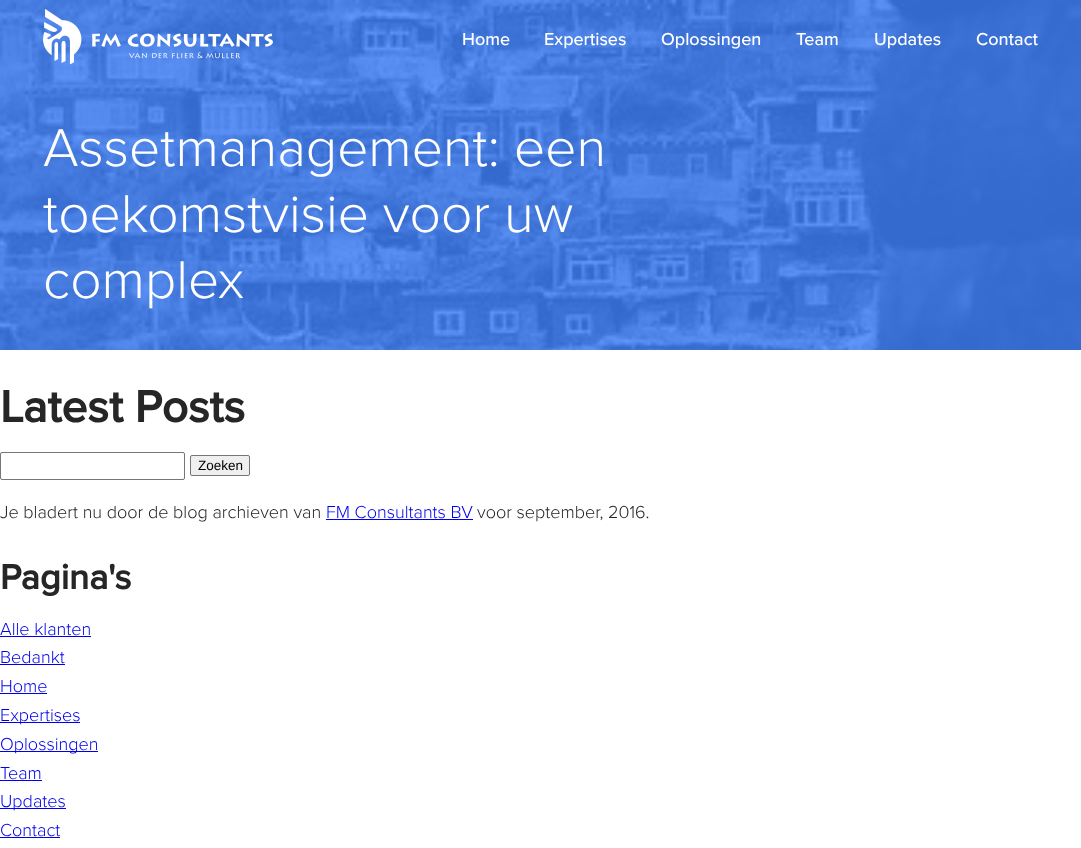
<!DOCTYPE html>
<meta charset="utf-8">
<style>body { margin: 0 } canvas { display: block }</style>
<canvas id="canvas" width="1081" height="848"></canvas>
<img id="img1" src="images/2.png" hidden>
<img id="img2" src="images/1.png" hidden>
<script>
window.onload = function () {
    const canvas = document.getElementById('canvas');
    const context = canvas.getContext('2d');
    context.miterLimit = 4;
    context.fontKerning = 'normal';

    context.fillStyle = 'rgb(255, 255, 255)';
    context.fillRect(0, 0, 1081, 848);
    context.fillStyle = 'rgb(102, 155, 255)';
    context.fillRect(0, 0, 1081, 350);
    context.drawImage(document.getElementById('img1'), 0, 0, 1081, 350);
    context.drawImage(document.getElementById('img2'), 43, 9, 230, 55);
    context.beginPath();
    context.roundRect(0.5, 452.5, 184, 27, 1.5);
    context.strokeStyle = 'rgb(118, 118, 118)';
    context.stroke();
    context.fillStyle = 'rgb(239, 239, 239)';
    context.beginPath();
    context.roundRect(190.5, 455.5, 59, 20, 1.5);
    context.fill();
    context.stroke();
    context.fillStyle = 'rgb(0, 0, 238)';
    context.fillRect(326, 519, 147, 1);
    context.fillRect(0, 636, 91, 1);
    context.fillRect(0, 664, 65, 1);
    context.fillRect(0, 693, 47, 1);
    context.fillRect(0, 722, 80, 1);
    context.fillRect(0, 751, 98, 1);
    context.fillRect(0, 780, 42, 1);
    context.fillRect(0, 808, 66, 1);
    context.fillRect(0, 837, 60, 1);
    context.font = '500 18px Proxima Nova';
    context.fillStyle = 'rgb(255, 255, 255)';
    context.fillText('Home', 462, 45);
    context.fillText('Expertises', 544, 45);
    context.fillText('Oplossingen', 661, 45);
    context.fillText('Team', 796, 45);
    context.fillText('Updates', 874, 45);
    context.fillText('Contact', 976, 45);
    context.font = '300 55px Proxima Nova';
    context.fillText('Assetmanagement: een', 43, 166);
    context.fillText('toekomstvisie voor uw', 43, 232);
    context.fillText('complex', 43, 298);
    context.font = 'bold 46px Proxima Nova';
    context.fillStyle = 'rgb(38, 38, 38)';
    context.fillText('Latest Posts', 0, 422);
    context.font = '13.5px Liberation Sans';
    context.fillStyle = 'rgb(0, 0, 0)';
    context.fillText('Zoeken', 198, 470);
    context.font = '300 18px Proxima Nova';
    context.fillStyle = 'rgb(38, 38, 38)';
    context.fillText('Je bladert nu door de blog archieven van', 0, 518);
    context.fillStyle = 'rgb(0, 0, 238)';
    context.fillText('FM Consultants BV', 326, 518);
    context.fillStyle = 'rgb(38, 38, 38)';
    context.fillText('voor september, 2016.', 477, 518);
    context.font = 'bold 36px Proxima Nova';
    context.fillText('Pagina\'s', 0, 589);
    context.font = '300 18px Proxima Nova';
    context.fillStyle = 'rgb(0, 0, 238)';
    context.fillText('Alle klanten', 0, 635);
    context.fillText('Bedankt', 0, 663);
    context.fillText('Home', 0, 692);
    context.fillText('Expertises', 0, 721);
    context.fillText('Oplossingen', 0, 750);
    context.fillText('Team', 0, 779);
    context.fillText('Updates', 0, 807);
    context.fillText('Contact', 0, 836);
};
</script>
